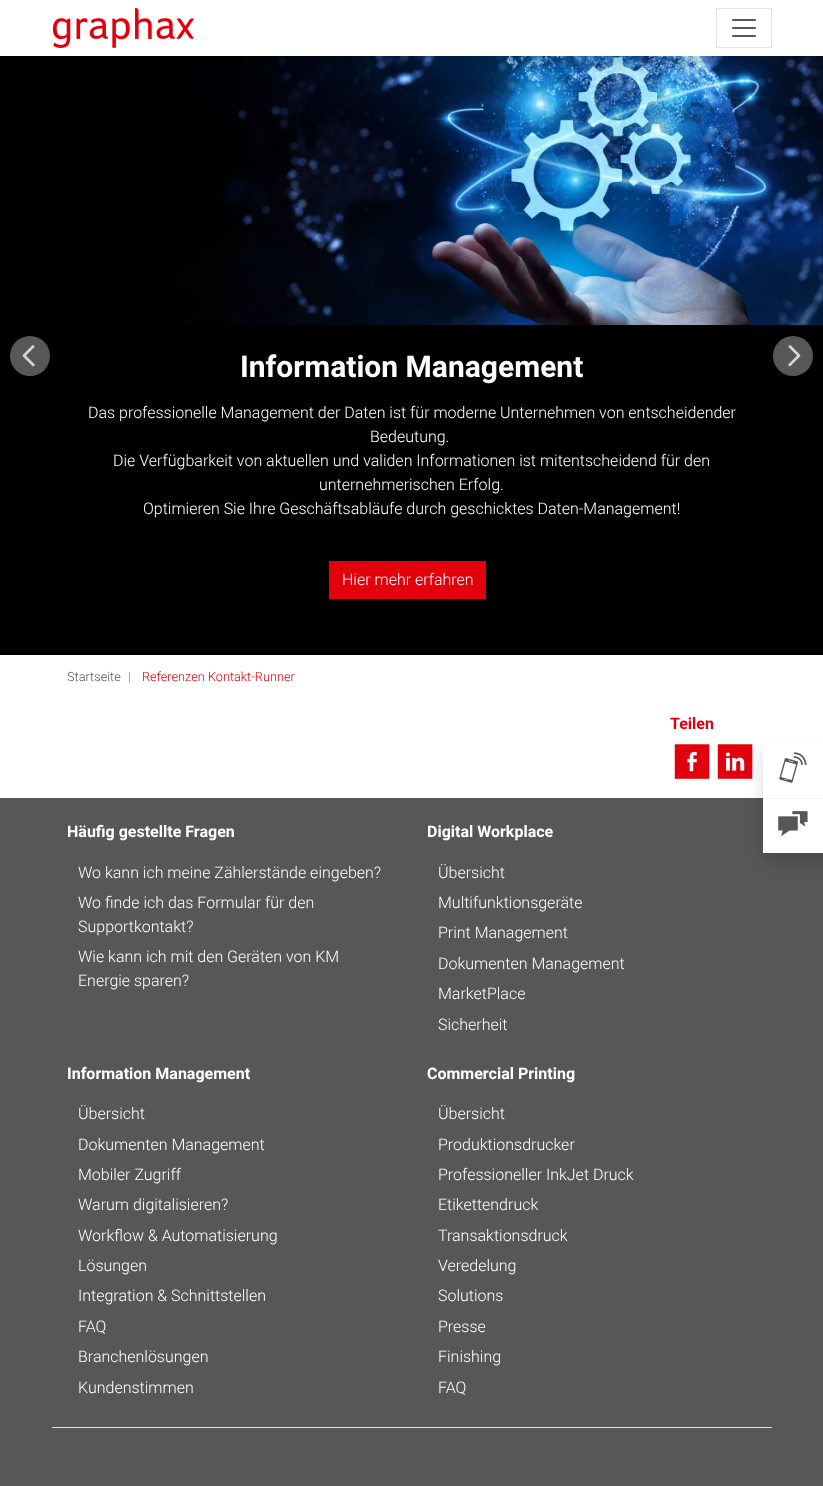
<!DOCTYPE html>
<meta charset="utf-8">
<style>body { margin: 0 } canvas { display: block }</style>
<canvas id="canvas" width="823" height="1486"></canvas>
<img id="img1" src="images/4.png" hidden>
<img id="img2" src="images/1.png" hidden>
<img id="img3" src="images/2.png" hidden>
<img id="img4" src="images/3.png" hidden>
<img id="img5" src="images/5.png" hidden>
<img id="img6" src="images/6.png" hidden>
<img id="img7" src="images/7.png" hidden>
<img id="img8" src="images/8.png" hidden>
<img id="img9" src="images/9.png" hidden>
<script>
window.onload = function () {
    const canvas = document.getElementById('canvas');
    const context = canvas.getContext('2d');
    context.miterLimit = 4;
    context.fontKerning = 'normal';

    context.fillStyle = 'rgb(255, 255, 255)';
    context.fillRect(0, 0, 823, 1486);
    context.fillStyle = 'rgb(0, 0, 0)';
    context.fillRect(0, 56, 823, 599);
    context.drawImage(document.getElementById('img1'), 177, 56, 646, 269);
    context.save();
    context.beginPath();
    context.rect(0, 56, 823, 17);
    context.clip();
    context.fillStyle = 'rgba(0, 0, 0, 0.15)';
    context.filter = 'blur(8px)';
    context.beginPath();
    context.rect(0, 8, 823, 56);
    context.fill();
    context.filter = 'none';
    context.restore();
    context.drawImage(document.getElementById('img2'), 52, 8, 142, 40);
    context.strokeStyle = 'rgb(230, 230, 230)';
    context.strokeRect(716.5, 8.5, 55, 39);
    context.drawImage(document.getElementById('img3'), 732, 19, 24, 18);
    context.fillStyle = 'rgb(87, 87, 86)';
    context.beginPath();
    context.arc(30, 356, 20, 0, 2 * Math.PI);
    context.fill();
    context.drawImage(document.getElementById('img4'), 22, 345, 13, 22);
    context.fillStyle = 'rgb(226, 0, 12)';
    context.fillRect(329, 561, 157, 38);
    context.fillStyle = 'rgb(87, 87, 86)';
    context.beginPath();
    context.arc(793, 356, 20, 0, 2 * Math.PI);
    context.fill();
    context.drawImage(document.getElementById('img5'), 788, 345, 13, 22);
    context.drawImage(document.getElementById('img6'), 674, 744, 36, 35);
    context.drawImage(document.getElementById('img7'), 717, 744, 36, 35);
    context.fillRect(0, 798, 823, 688);
    context.fillStyle = 'rgba(0, 0, 0, 0.15)';
    context.filter = 'blur(8px)';
    context.beginPath();
    context.rect(763, 751, 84, 110);
    context.fill();
    context.filter = 'none';
    context.fillStyle = 'rgb(255, 255, 255)';
    context.fillRect(763, 743, 60, 55);
    context.drawImage(document.getElementById('img8'), 779, 752, 28, 31);
    context.fillStyle = 'rgb(244, 244, 244)';
    context.fillRect(763, 798, 60, 1);
    context.fillStyle = 'rgb(255, 255, 255)';
    context.fillRect(763, 799, 60, 54);
    context.drawImage(document.getElementById('img9'), 778, 811, 30, 26);
    context.fillStyle = 'rgb(222, 226, 230)';
    context.fillRect(52, 1427, 720, 1);
    context.font = 'bold 30px Roboto';
    context.fillStyle = 'rgb(255, 255, 255)';
    context.fillText('Information Management', 240, 377);
    context.font = '300 16px Roboto';
    context.fillText('Das professionelle Management der Daten ist für moderne Unternehmen von entscheidender', 88, 418);
    context.fillText('Bedeutung.', 370, 442);
    context.fillText('Die Verfügbarkeit von aktuellen und validen Informationen ist mitentscheidend für den', 113, 466);
    context.fillText('unternehmerischen Erfolg.', 319, 490);
    context.fillText('Optimieren Sie Ihre Geschäftsabläufe durch geschicktes Daten-Management!', 143, 514);
    context.fillText('Hier mehr erfahren', 342, 585);
    context.font = '300 12.75px Roboto';
    context.fillStyle = 'rgb(87, 87, 86)';
    context.fillText('Startseite', 67, 681);
    context.fillStyle = 'rgb(108, 117, 125)';
    context.fillText('|', 128, 681);
    context.fillStyle = 'rgb(226, 0, 12)';
    context.fillText('Referenzen Kontakt-Runner', 142, 681);
    context.font = 'bold 16px Roboto';
    context.fillText('Teilen', 670, 729);
    context.fillStyle = 'rgb(255, 255, 255)';
    context.fillText('Häufig gestellte Fragen', 67, 837);
    context.font = '300 16px Roboto';
    context.fillText('Wo kann ich meine Zählerstände eingeben?', 78, 878);
    context.fillText('Wo finde ich das Formular für den', 78, 908);
    context.fillText('Supportkontakt?', 78, 932);
    context.fillText('Wie kann ich mit den Geräten von KM', 78, 962);
    context.fillText('Energie sparen?', 78, 986);
    context.font = 'bold 16px Roboto';
    context.fillText('Digital Workplace', 427, 837);
    context.font = '300 16px Roboto';
    context.fillText('Übersicht', 438, 878);
    context.fillText('Multifunktionsgeräte', 438, 908);
    context.fillText('Print Management', 438, 938);
    context.fillText('Dokumenten Management', 438, 969);
    context.fillText('MarketPlace', 438, 999);
    context.fillText('Sicherheit', 438, 1030);
    context.font = 'bold 16px Roboto';
    context.fillText('Information Management', 67, 1079);
    context.font = '300 16px Roboto';
    context.fillText('Übersicht', 78, 1119);
    context.fillText('Dokumenten Management', 78, 1150);
    context.fillText('Mobiler Zugriff', 78, 1180);
    context.fillText('Warum digitalisieren?', 78, 1210);
    context.fillText('Workflow & Automatisierung', 78, 1241);
    context.fillText('Lösungen', 78, 1271);
    context.fillText('Integration & Schnittstellen', 78, 1301);
    context.fillText('FAQ', 78, 1332);
    context.fillText('Branchenlösungen', 78, 1362);
    context.fillText('Kundenstimmen', 78, 1393);
    context.font = 'bold 16px Roboto';
    context.fillText('Commercial Printing', 427, 1079);
    context.font = '300 16px Roboto';
    context.fillText('Übersicht', 438, 1119);
    context.fillText('Produktionsdrucker', 438, 1150);
    context.fillText('Professioneller InkJet Druck', 438, 1180);
    context.fillText('Etikettendruck', 438, 1210);
    context.fillText('Transaktionsdruck', 438, 1241);
    context.fillText('Veredelung', 438, 1271);
    context.fillText('Solutions', 438, 1301);
    context.fillText('Presse', 438, 1332);
    context.fillText('Finishing', 438, 1362);
    context.fillText('FAQ', 438, 1393);
};
</script>
